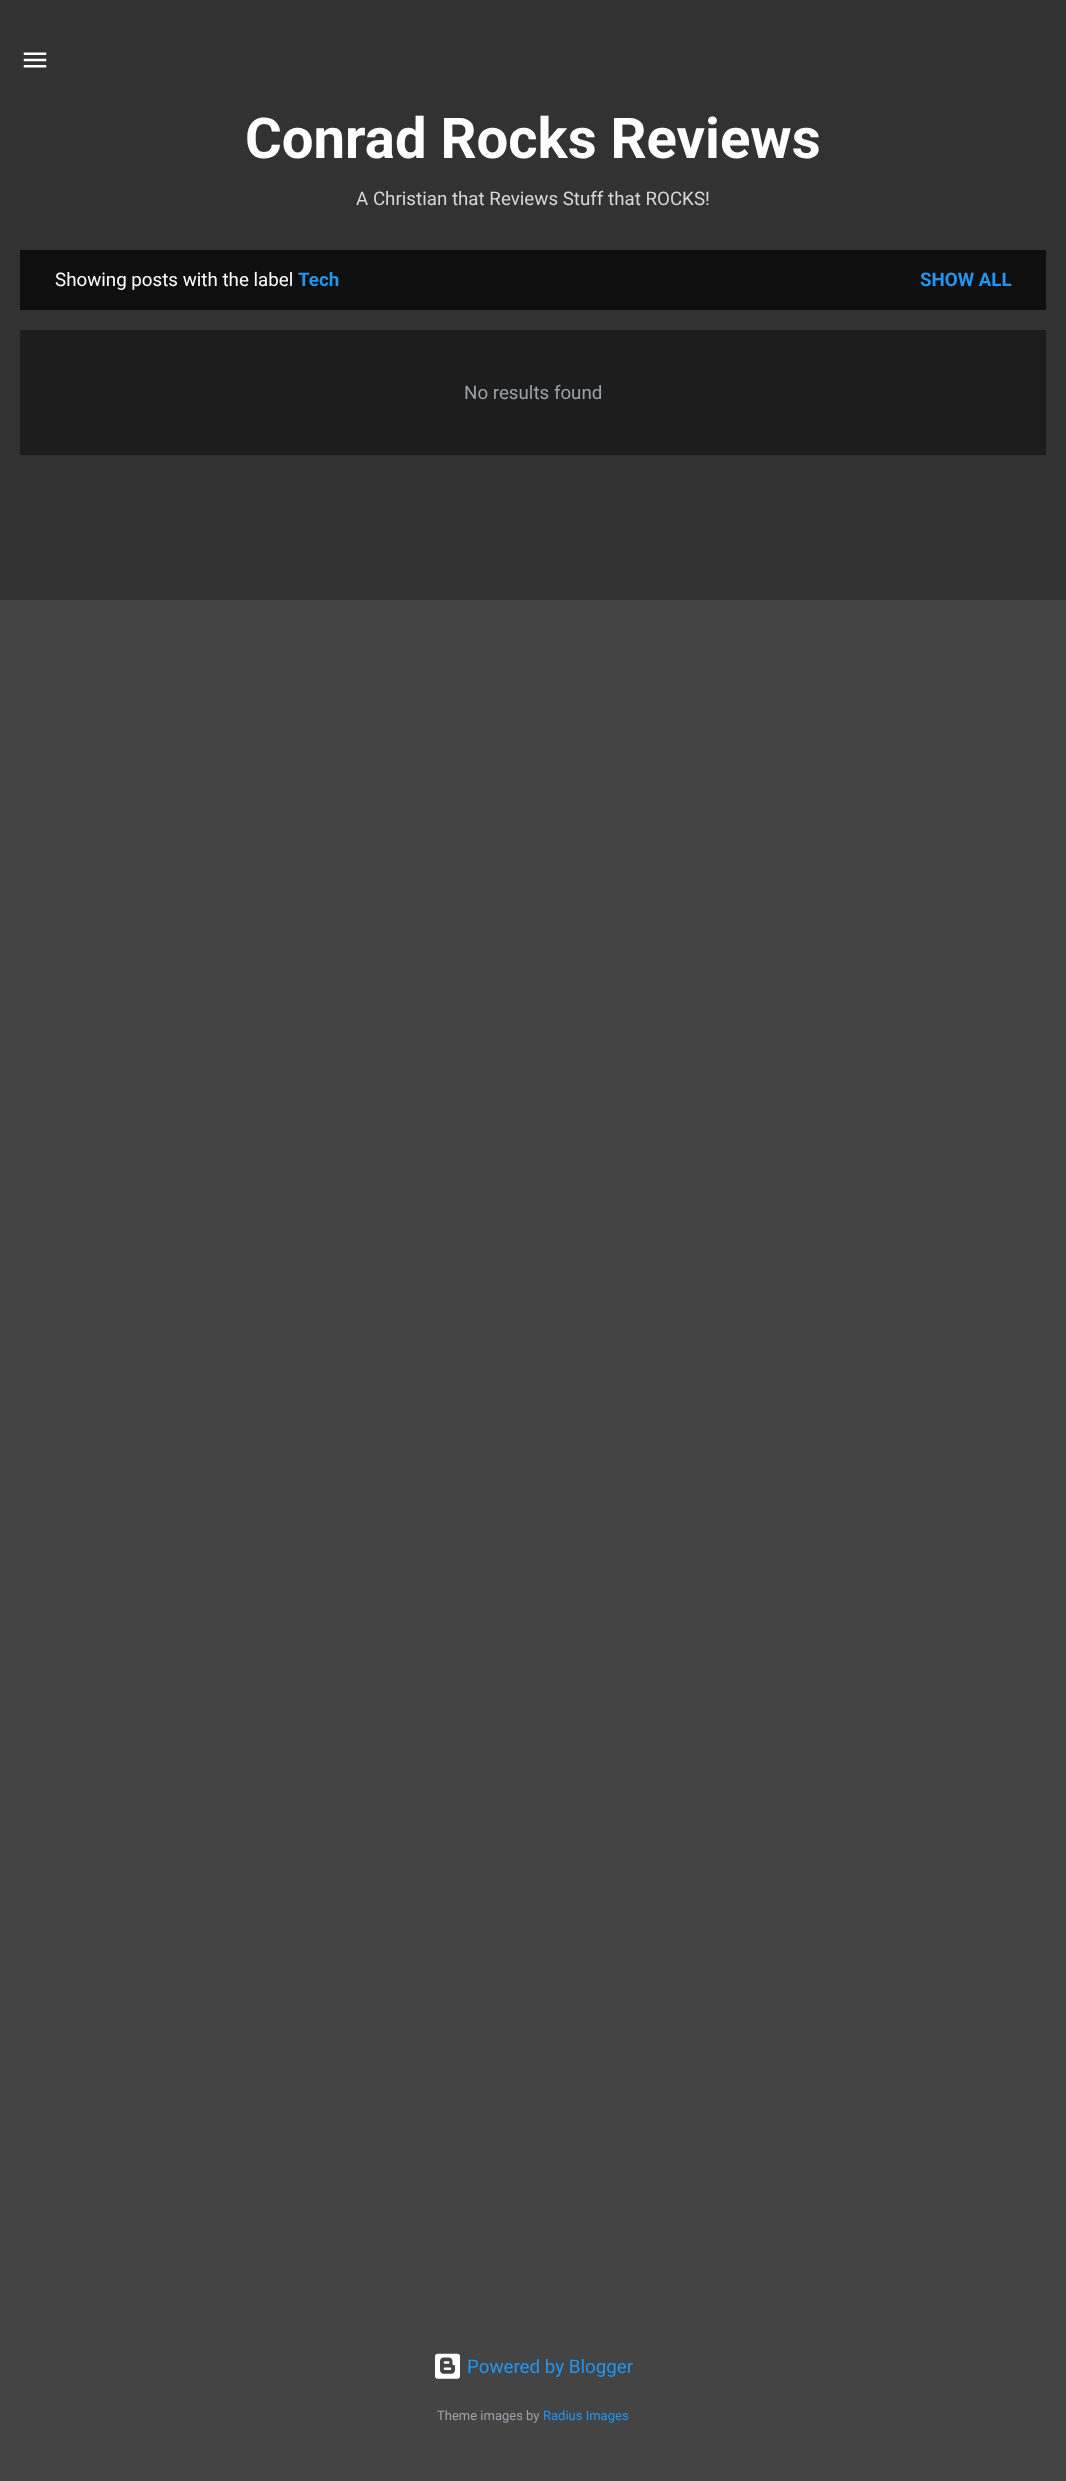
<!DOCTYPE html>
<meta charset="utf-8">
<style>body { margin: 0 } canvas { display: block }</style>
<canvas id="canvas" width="1066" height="2481"></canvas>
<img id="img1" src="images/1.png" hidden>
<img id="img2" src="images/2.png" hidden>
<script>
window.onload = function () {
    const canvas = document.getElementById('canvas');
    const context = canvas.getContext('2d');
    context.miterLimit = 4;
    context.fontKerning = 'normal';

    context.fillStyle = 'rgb(68, 68, 68)';
    context.fillRect(0, 0, 1066, 2481);
    context.fillStyle = 'rgb(50, 50, 50)';
    context.fillRect(0, 0, 1066, 600);
    context.drawImage(document.getElementById('img1'), 23, 52, 24, 16);
    context.fillStyle = 'rgb(15, 15, 15)';
    context.fillRect(20, 250, 1026, 60);
    context.fillStyle = 'rgb(29, 29, 29)';
    context.fillRect(20, 330, 1026, 125);
    context.drawImage(document.getElementById('img2'), 435, 2353, 25, 26);
    context.font = 'bold 56.25px Roboto';
    context.fillStyle = 'rgb(255, 255, 255)';
    context.fillText('Conrad Rocks Reviews', 245, 158);
    context.font = '18.75px Roboto';
    context.fillStyle = 'rgb(214, 214, 214)';
    context.fillText('A Christian that Reviews Stuff that ROCKS!', 356, 205);
    context.fillStyle = 'rgb(255, 255, 255)';
    context.fillText('Showing posts with the label', 55, 286);
    context.font = 'bold 18.75px Roboto';
    context.fillStyle = 'rgb(33, 150, 243)';
    context.fillText('Tech', 298, 286);
    context.fillText('SHOW ALL', 920, 286);
    context.font = '18.75px Roboto';
    context.fillStyle = 'rgb(155, 162, 168)';
    context.fillText('No results found', 464, 399);
    context.fillStyle = 'rgb(33, 150, 243)';
    context.fillText('Powered by Blogger', 467, 2373);
    context.font = '13px Roboto';
    context.fillStyle = 'rgb(155, 162, 168)';
    context.fillText('Theme images by', 437, 2420);
    context.fillStyle = 'rgb(33, 150, 243)';
    context.fillText('Radius Images', 543, 2420);
};
</script>
